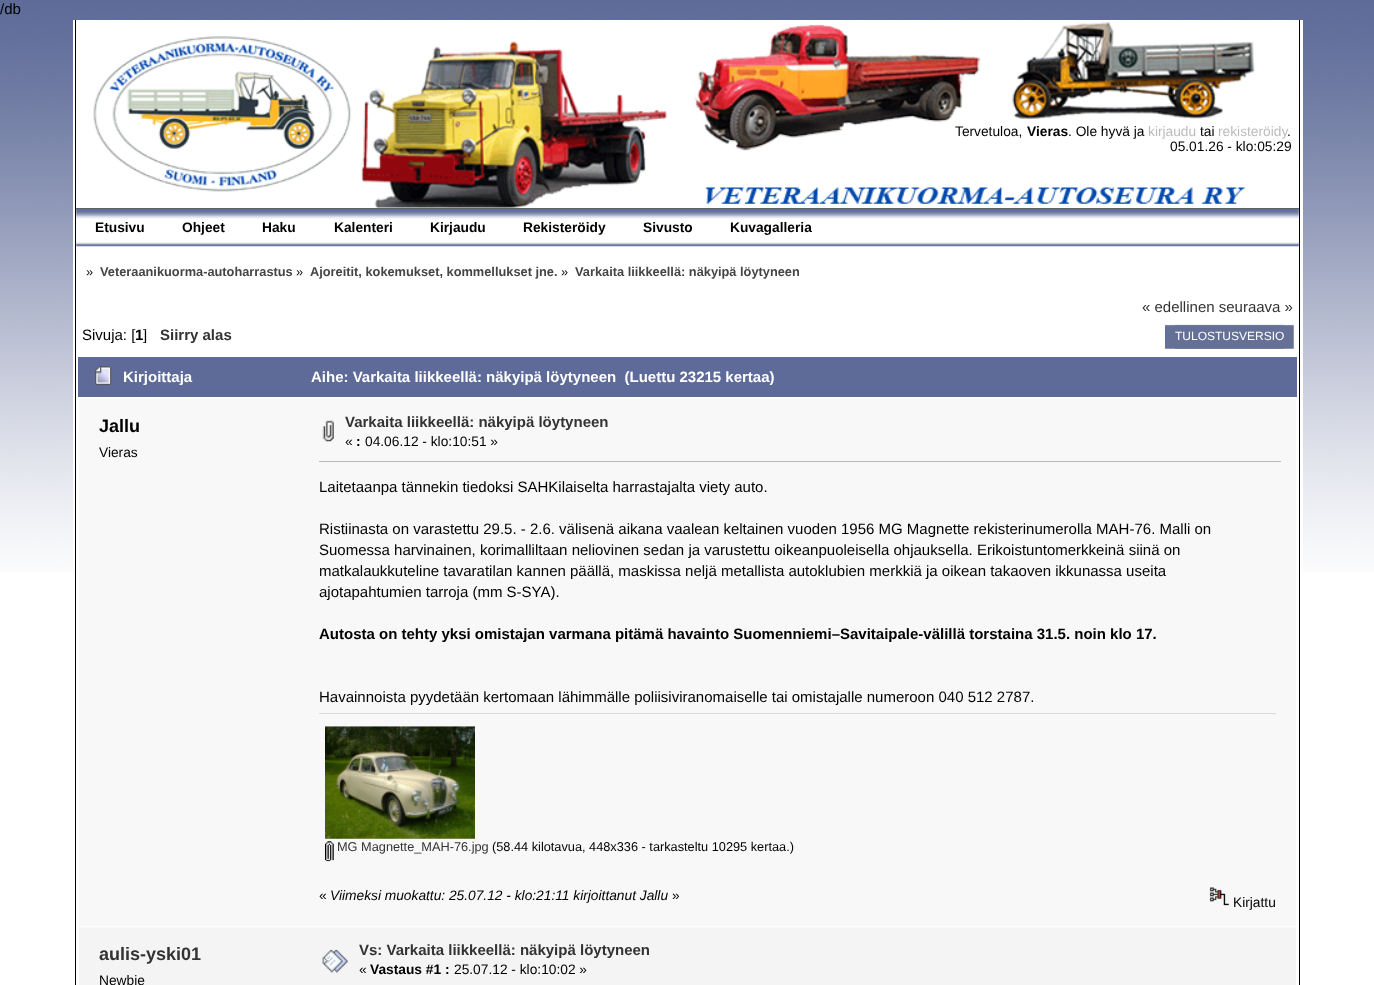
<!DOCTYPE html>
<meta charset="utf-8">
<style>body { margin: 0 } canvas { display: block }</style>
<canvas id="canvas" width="1374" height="985"></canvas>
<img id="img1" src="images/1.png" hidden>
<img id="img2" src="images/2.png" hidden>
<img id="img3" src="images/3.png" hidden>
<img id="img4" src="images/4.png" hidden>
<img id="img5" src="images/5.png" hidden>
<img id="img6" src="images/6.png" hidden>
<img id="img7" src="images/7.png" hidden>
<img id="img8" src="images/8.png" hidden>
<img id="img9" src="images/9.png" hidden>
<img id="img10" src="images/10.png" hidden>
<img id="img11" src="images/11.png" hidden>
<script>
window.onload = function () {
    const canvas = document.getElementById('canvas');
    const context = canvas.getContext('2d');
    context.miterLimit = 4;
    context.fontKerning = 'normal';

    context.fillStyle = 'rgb(255, 255, 255)';
    context.fillRect(0, 0, 1374, 985);
    context.drawImage(document.getElementById('img1'), 0, 0, 1374, 572);
    context.fillRect(73, 20, 1230, 552);
    context.fillStyle = 'rgb(0, 0, 0)';
    context.fillRect(1299, 20, 1, 965);
    context.fillRect(75, 20, 1, 965);
    context.drawImage(document.getElementById('img2'), 93, 21, 1162, 187);
    context.drawImage(document.getElementById('img3'), 76, 209, 1223, 38);
    context.fillStyle = 'rgb(96, 96, 96)';
    context.fillRect(76, 208, 1223, 1);
    context.drawImage(document.getElementById('img4'), 1165, 324, 119, 25);
    context.drawImage(document.getElementById('img5'), 1175, 324, 119, 25);
    context.fillStyle = 'rgb(94, 107, 152)';
    context.fillRect(78, 357, 1219, 40);
    context.drawImage(document.getElementById('img6'), 95, 366, 17, 20);
    context.fillStyle = 'rgb(248, 248, 248)';
    context.fillRect(79, 399, 1217, 527);
    context.drawImage(document.getElementById('img7'), 322, 420, 12, 22);
    context.fillStyle = 'rgb(187, 187, 187)';
    context.fillRect(319, 461, 962, 1);
    context.fillStyle = 'rgb(218, 218, 218)';
    context.fillRect(319, 713, 957, 1);
    context.drawImage(document.getElementById('img8'), 325, 726, 150, 113);
    context.drawImage(document.getElementById('img9'), 325, 841, 9, 21);
    context.drawImage(document.getElementById('img10'), 1209, 887, 20, 19);
    context.fillStyle = 'rgb(244, 244, 244)';
    context.fillRect(79, 928, 1217, 57);
    context.fillStyle = 'rgb(249, 249, 249)';
    context.fillRect(79, 927, 1217, 1);
    context.drawImage(document.getElementById('img11'), 322, 949, 26, 24);
    context.font = '15px Liberation Sans';
    context.fillStyle = 'rgb(0, 0, 0)';
    context.fillText('/db', 0, 14);
    context.font = '13.75px Liberation Sans';
    context.fillText('Tervetuloa,', 955, 136);
    context.font = 'bold 13.75px Liberation Sans';
    context.fillText('Vieras', 1027, 136);
    context.font = '13.75px Liberation Sans';
    context.fillText('. Ole hyvä ja', 1068, 136);
    context.fillStyle = 'rgb(188, 188, 188)';
    context.fillText('kirjaudu', 1148, 136);
    context.fillStyle = 'rgb(0, 0, 0)';
    context.fillText('tai', 1200, 136);
    context.fillStyle = 'rgb(188, 188, 188)';
    context.fillText('rekisteröidy', 1218, 136);
    context.fillStyle = 'rgb(0, 0, 0)';
    context.fillText('.', 1287, 136);
    context.fillText('05.01.26 - klo:05:29', 1170, 151);
    context.font = 'bold 13.75px Liberation Sans';
    context.fillText('Etusivu', 95, 232);
    context.fillText('Ohjeet', 182, 232);
    context.fillText('Haku', 262, 232);
    context.fillText('Kalenteri', 334, 232);
    context.fillText('Kirjaudu', 430, 232);
    context.fillText('Rekisteröidy', 523, 232);
    context.fillText('Sivusto', 643, 232);
    context.fillText('Kuvagalleria', 730, 232);
    context.font = '12.8px Liberation Sans';
    context.fillText('»', 86, 276);
    context.font = 'bold 12.8px Liberation Sans';
    context.fillStyle = 'rgb(69, 69, 69)';
    context.fillText('Veteraanikuorma-autoharrastus', 100, 276);
    context.font = '12.8px Liberation Sans';
    context.fillStyle = 'rgb(0, 0, 0)';
    context.fillText('»', 296, 276);
    context.font = 'bold 12.8px Liberation Sans';
    context.fillStyle = 'rgb(69, 69, 69)';
    context.fillText('Ajoreitit, kokemukset, kommellukset jne.', 310, 276);
    context.font = '12.8px Liberation Sans';
    context.fillStyle = 'rgb(0, 0, 0)';
    context.fillText('»', 561, 276);
    context.font = 'bold 12.8px Liberation Sans';
    context.fillStyle = 'rgb(69, 69, 69)';
    context.fillText('Varkaita liikkeellä: näkyipä löytyneen', 575, 276);
    context.font = '15px Liberation Sans';
    context.fillStyle = 'rgb(51, 51, 51)';
    context.fillText('« edellinen seuraava »', 1142, 312);
    context.fillStyle = 'rgb(0, 0, 0)';
    context.fillText('Sivuja: [', 82, 340);
    context.font = 'bold 15px Liberation Sans';
    context.fillText('1', 135, 340);
    context.font = '15px Liberation Sans';
    context.fillText(']', 143, 340);
    context.font = 'bold 15px Liberation Sans';
    context.fillStyle = 'rgb(51, 51, 51)';
    context.fillText('Siirry alas', 160, 340);
    context.font = '12px Liberation Sans';
    context.fillStyle = 'rgb(255, 255, 255)';
    context.fillText('TULOSTUSVERSIO', 1175, 340);
    context.font = 'bold 15px Liberation Sans';
    context.fillText('Kirjoittaja', 123, 382);
    context.fillText('Aihe: Varkaita liikkeellä: näkyipä löytyneen  (Luettu 23215 kertaa)', 311, 382);
    context.font = 'bold 18px Liberation Sans';
    context.fillStyle = 'rgb(0, 0, 0)';
    context.fillText('Jallu', 99, 432);
    context.font = '13.75px Liberation Sans';
    context.fillText('Vieras', 99, 457);
    context.font = 'bold 15px Liberation Sans';
    context.fillStyle = 'rgb(51, 51, 51)';
    context.fillText('Varkaita liikkeellä: näkyipä löytyneen', 345, 427);
    context.font = '13.75px Liberation Sans';
    context.fillStyle = 'rgb(0, 0, 0)';
    context.fillText('«', 345, 446);
    context.font = 'bold 13.75px Liberation Sans';
    context.fillText(':', 356, 446);
    context.font = '13.75px Liberation Sans';
    context.fillText('04.06.12 - klo:10:51 »', 365, 446);
    context.font = '15px Liberation Sans';
    context.fillText('Laitetaanpa tännekin tiedoksi SAHKilaiselta harrastajalta viety auto.', 319, 492);
    context.fillText('Ristiinasta on varastettu 29.5. - 2.6. välisenä aikana vaalean keltainen vuoden 1956 MG Magnette rekisterinumerolla MAH-76. Malli on', 319, 534);
    context.fillText('Suomessa harvinainen, korimalliltaan neliovinen sedan ja varustettu oikeanpuoleisella ohjauksella. Erikoistuntomerkkeinä siinä on', 319, 555);
    context.fillText('matkalaukkuteline tavaratilan kannen päällä, maskissa neljä metallista autoklubien merkkiä ja oikean takaoven ikkunassa useita', 319, 576);
    context.fillText('ajotapahtumien tarroja (mm S-SYA).', 319, 597);
    context.font = 'bold 15px Liberation Sans';
    context.fillText('Autosta on tehty yksi omistajan varmana pitämä havainto Suomenniemi–Savitaipale-välillä torstaina 31.5. noin klo 17.', 319, 639);
    context.font = '15px Liberation Sans';
    context.fillText('Havainnoista pyydetään kertomaan lähimmälle poliisiviranomaiselle tai omistajalle numeroon 040 512 2787.', 319, 702);
    context.font = '12.75px Liberation Sans';
    context.fillStyle = 'rgb(51, 51, 51)';
    context.fillText('MG Magnette_MAH-76.jpg', 337, 851);
    context.fillStyle = 'rgb(0, 0, 0)';
    context.fillText('(58.44 kilotavua, 448x336 - tarkasteltu 10295 kertaa.)', 492, 851);
    context.font = '13.75px Liberation Sans';
    context.fillText('«', 319, 900);
    context.font = 'italic 13.75px Liberation Sans';
    context.fillText('Viimeksi muokattu: 25.07.12 - klo:21:11 kirjoittanut Jallu', 330, 900);
    context.font = '13.75px Liberation Sans';
    context.fillText('»', 672, 900);
    context.fillText('Kirjattu', 1233, 907);
    context.font = 'bold 18px Liberation Sans';
    context.fillStyle = 'rgb(51, 51, 51)';
    context.fillText('aulis-yski01', 99, 960);
    context.font = '13.75px Liberation Sans';
    context.fillStyle = 'rgb(0, 0, 0)';
    context.fillText('Newbie', 99, 985);
    context.font = 'bold 15px Liberation Sans';
    context.fillStyle = 'rgb(51, 51, 51)';
    context.fillText('Vs: Varkaita liikkeellä: näkyipä löytyneen', 359, 955);
    context.font = '13.75px Liberation Sans';
    context.fillStyle = 'rgb(0, 0, 0)';
    context.fillText('«', 359, 974);
    context.font = 'bold 13.75px Liberation Sans';
    context.fillText('Vastaus #1 :', 370, 974);
    context.font = '13.75px Liberation Sans';
    context.fillText('25.07.12 - klo:10:02 »', 454, 974);
};
</script>
